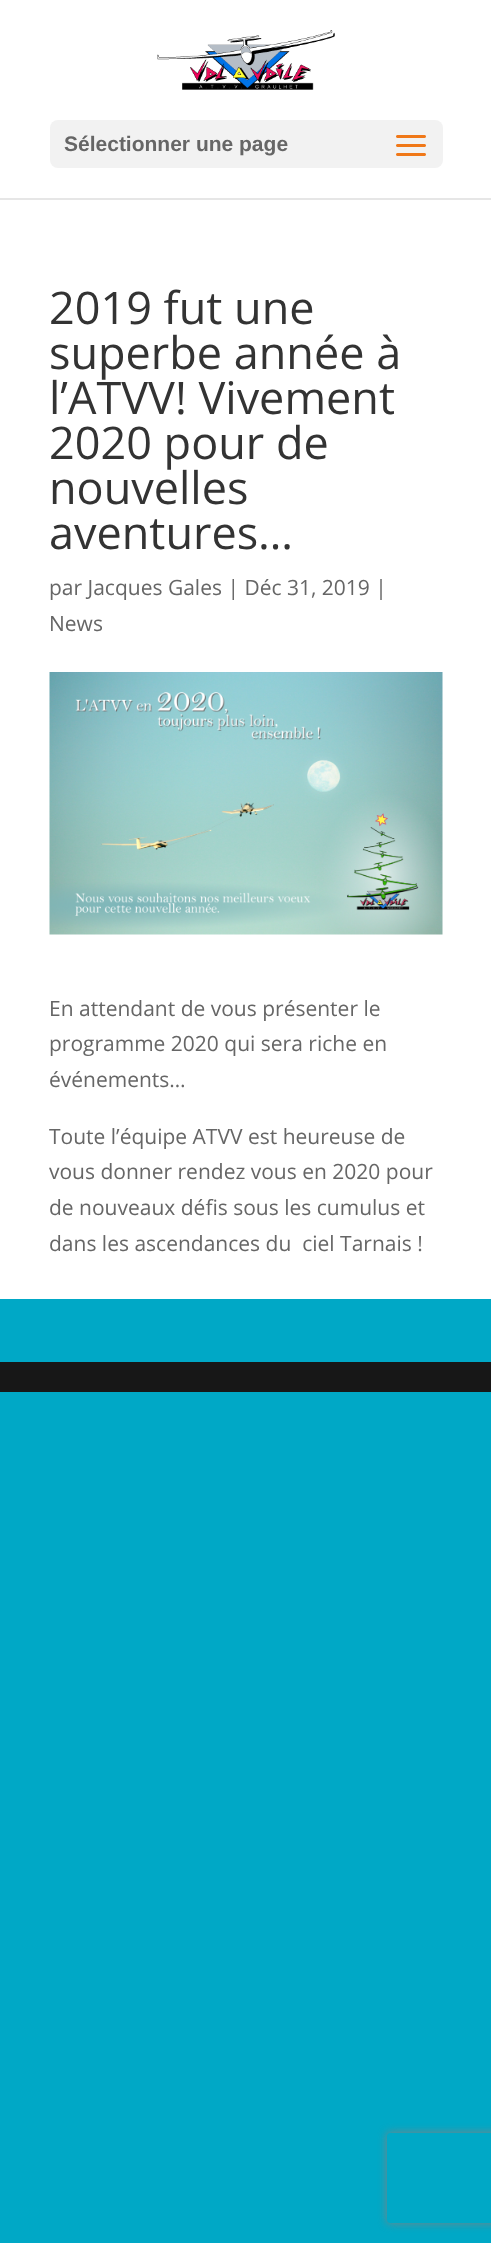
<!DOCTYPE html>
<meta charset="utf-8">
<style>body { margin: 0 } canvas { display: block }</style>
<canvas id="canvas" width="491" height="2243"></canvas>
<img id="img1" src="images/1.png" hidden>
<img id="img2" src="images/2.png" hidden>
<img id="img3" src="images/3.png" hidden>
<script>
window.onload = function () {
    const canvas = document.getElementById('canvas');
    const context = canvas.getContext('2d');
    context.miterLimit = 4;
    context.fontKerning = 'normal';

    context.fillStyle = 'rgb(0, 168, 198)';
    context.fillRect(0, 0, 491, 2243);
    context.fillStyle = 'rgb(230, 230, 230)';
    context.fillRect(0, 198, 491, 2);
    context.fillStyle = 'rgb(255, 255, 255)';
    context.fillRect(0, 0, 491, 198);
    context.drawImage(document.getElementById('img1'), 157, 30, 178, 60);
    context.fillStyle = 'rgb(242, 242, 242)';
    context.beginPath();
    context.roundRect(50, 120, 393, 48, 8);
    context.fill();
    context.drawImage(document.getElementById('img2'), 396, 135, 30, 21);
    context.fillStyle = 'rgb(255, 255, 255)';
    context.fillRect(0, 200, 491, 1099);
    context.drawImage(document.getElementById('img3'), 49, 672, 394, 263);
    context.fillStyle = 'rgb(23, 23, 23)';
    context.fillRect(0, 1362, 491, 30);
    context.save();
    context.beginPath();
    context.moveTo(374, 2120);
    context.lineTo(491, 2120);
    context.lineTo(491, 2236);
    context.lineTo(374, 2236);
    context.closePath();
    context.moveTo(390, 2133);
    context.lineTo(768, 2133);
    context.bezierCurveTo(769.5, 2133, 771, 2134.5, 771, 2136);
    context.lineTo(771, 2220);
    context.bezierCurveTo(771, 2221.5, 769.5, 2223, 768, 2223);
    context.lineTo(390, 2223);
    context.bezierCurveTo(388.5, 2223, 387, 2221.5, 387, 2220);
    context.lineTo(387, 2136);
    context.bezierCurveTo(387, 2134.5, 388.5, 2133, 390, 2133);
    context.closePath();
    context.clip('evenodd');
    context.fillStyle = 'rgb(128, 128, 128)';
    context.filter = 'blur(4px)';
    context.beginPath();
    context.roundRect(387, 2133, 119, 90, 3);
    context.fill();
    context.filter = 'none';
    context.restore();
    context.font = 'bold 21px Liberation Sans';
    context.fillStyle = 'rgb(102, 102, 102)';
    context.fillText('Sélectionner une page', 64, 151);
    context.font = '45px Open Sans';
    context.fillStyle = 'rgb(51, 51, 51)';
    context.fillText('2019 fut une', 49, 324);
    context.fillText('superbe année à', 49, 369);
    context.fillText('l’ATVV! Vivement', 49, 414);
    context.fillText('2020 pour de', 49, 459);
    context.fillText('nouvelles', 49, 504);
    context.fillText('aventures…', 49, 549);
    context.font = '21px Open Sans';
    context.fillStyle = 'rgb(102, 102, 102)';
    context.fillText('par Jacques Gales | Déc 31, 2019 |', 49, 595);
    context.fillText('News', 49, 631);
    context.fillText('En attendant de vous présenter le', 49, 1016);
    context.fillText('programme 2020 qui sera riche en', 49, 1051);
    context.fillText('événements…', 49, 1087);
    context.fillText('Toute l’équipe ATVV est heureuse de', 49, 1144);
    context.fillText('vous donner rendez vous en 2020 pour', 49, 1179);
    context.fillText('de nouveaux défis sous les cumulus et', 49, 1215);
    context.fillText('dans les ascendances du  ciel Tarnais !', 49, 1251);
};
</script>
